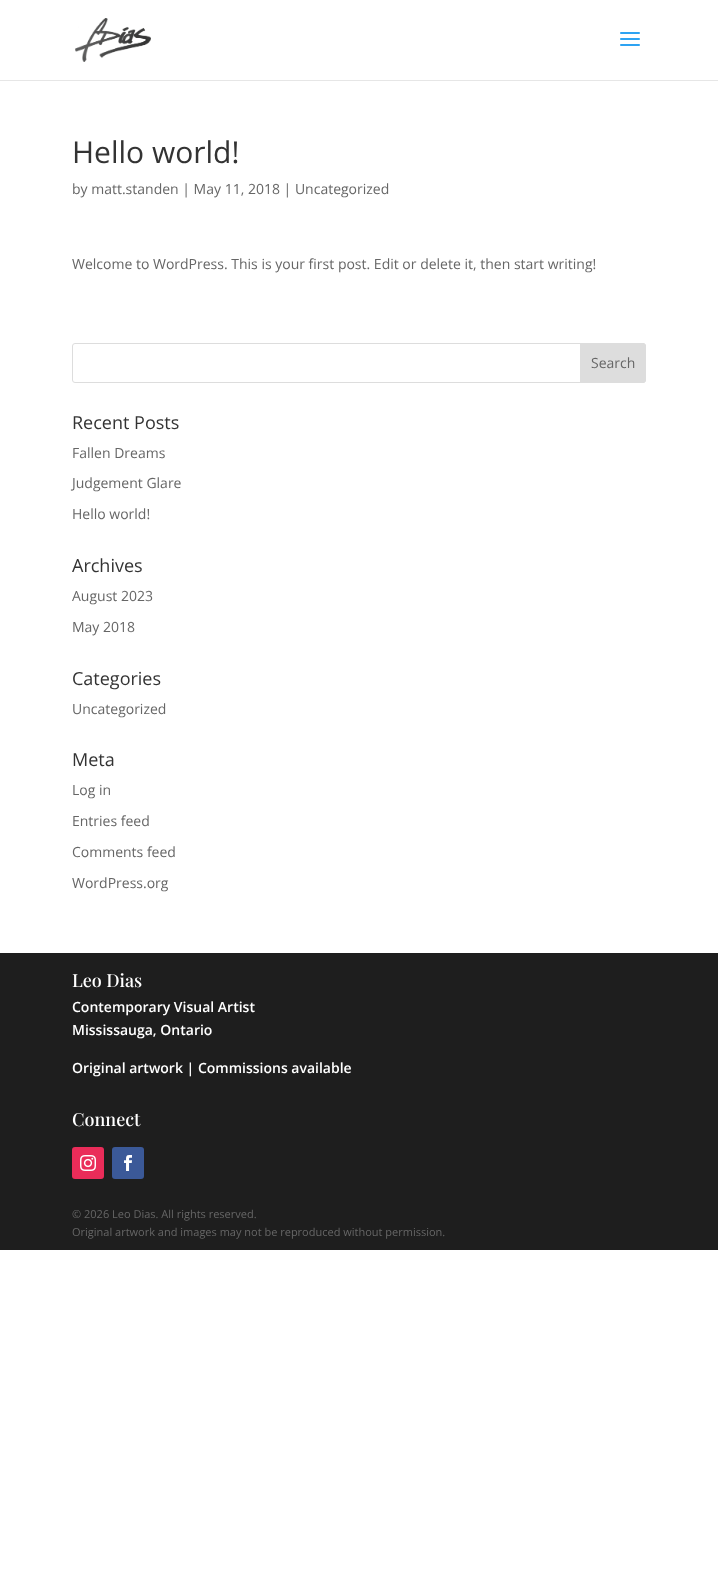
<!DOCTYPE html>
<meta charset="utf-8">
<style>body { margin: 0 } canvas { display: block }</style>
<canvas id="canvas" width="718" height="1594"></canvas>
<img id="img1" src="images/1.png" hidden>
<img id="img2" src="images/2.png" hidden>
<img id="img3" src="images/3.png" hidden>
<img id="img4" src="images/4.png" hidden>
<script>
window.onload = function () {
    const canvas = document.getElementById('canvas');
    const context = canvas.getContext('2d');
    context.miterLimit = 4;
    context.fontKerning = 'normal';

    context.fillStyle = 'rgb(255, 255, 255)';
    context.fillRect(0, 0, 718, 1594);
    context.fillStyle = 'rgb(230, 230, 230)';
    context.fillRect(0, 80, 718, 1);
    context.drawImage(document.getElementById('img1'), 75, 18, 76, 44);
    context.drawImage(document.getElementById('img2'), 620, 32, 20, 14);
    context.beginPath();
    context.roundRect(72.5, 343.5, 573, 39, 2.5);
    context.strokeStyle = 'rgb(221, 221, 221)';
    context.stroke();
    context.fillStyle = 'rgb(221, 221, 221)';
    context.beginPath();
    context.roundRect(580.5, 343.5, 65, 39, [0, 2.5, 2.5, 0]);
    context.fill();
    context.stroke();
    context.fillStyle = 'rgb(30, 30, 30)';
    context.fillRect(0, 953, 718, 297);
    context.fillStyle = 'rgb(234, 44, 89)';
    context.beginPath();
    context.roundRect(72, 1147, 32, 32, 3);
    context.fill();
    context.drawImage(document.getElementById('img3'), 80, 1155, 16, 16);
    context.fillStyle = 'rgb(59, 89, 152)';
    context.beginPath();
    context.roundRect(112, 1147, 32, 32, 3);
    context.fill();
    context.drawImage(document.getElementById('img4'), 124, 1155, 8, 16);
    context.font = '30px Open Sans';
    context.fillStyle = 'rgb(51, 51, 51)';
    context.fillText('Hello world!', 72, 163);
    context.font = '14px Open Sans';
    context.fillStyle = 'rgb(102, 102, 102)';
    context.fillText('by matt.standen | May 11, 2018 | Uncategorized', 72, 194);
    context.fillText('Welcome to WordPress. This is your first post. Edit or delete it, then start writing!', 72, 269);
    context.fillText('Search', 591, 368);
    context.font = '18px Open Sans';
    context.fillStyle = 'rgb(51, 51, 51)';
    context.fillText('Recent Posts', 72, 429);
    context.font = '14px Open Sans';
    context.fillStyle = 'rgb(102, 102, 102)';
    context.fillText('Fallen Dreams', 72, 458);
    context.fillText('Judgement Glare', 72, 488);
    context.fillText('Hello world!', 72, 519);
    context.font = '18px Open Sans';
    context.fillStyle = 'rgb(51, 51, 51)';
    context.fillText('Archives', 72, 572);
    context.font = '14px Open Sans';
    context.fillStyle = 'rgb(102, 102, 102)';
    context.fillText('August 2023', 72, 601);
    context.fillText('May 2018', 72, 632);
    context.font = '18px Open Sans';
    context.fillStyle = 'rgb(51, 51, 51)';
    context.fillText('Categories', 72, 685);
    context.font = '14px Open Sans';
    context.fillStyle = 'rgb(102, 102, 102)';
    context.fillText('Uncategorized', 72, 714);
    context.font = '18px Open Sans';
    context.fillStyle = 'rgb(51, 51, 51)';
    context.fillText('Meta', 72, 766);
    context.font = '14px Open Sans';
    context.fillStyle = 'rgb(102, 102, 102)';
    context.fillText('Log in', 72, 795);
    context.fillText('Entries feed', 72, 826);
    context.fillText('Comments feed', 72, 857);
    context.fillText('WordPress.org', 72, 888);
    context.font = '500 18px Playfair Display';
    context.fillStyle = 'rgb(255, 255, 255)';
    context.fillText('Leo Dias', 72, 987);
    context.font = '600 14px Open Sans';
    context.fillText('Contemporary Visual Artist', 72, 1012);
    context.fillText('Mississauga, Ontario', 72, 1035);
    context.fillText('Original artwork | Commissions available', 72, 1073);
    context.font = '500 18px Playfair Display';
    context.fillText('Connect', 72, 1126);
    context.font = '11px Open Sans';
    context.fillStyle = 'rgb(102, 102, 102)';
    context.fillText('© 2026 Leo Dias. All rights reserved.', 72, 1218);
    context.fillText('Original artwork and images may not be reproduced without permission.', 72, 1236);
};
</script>
